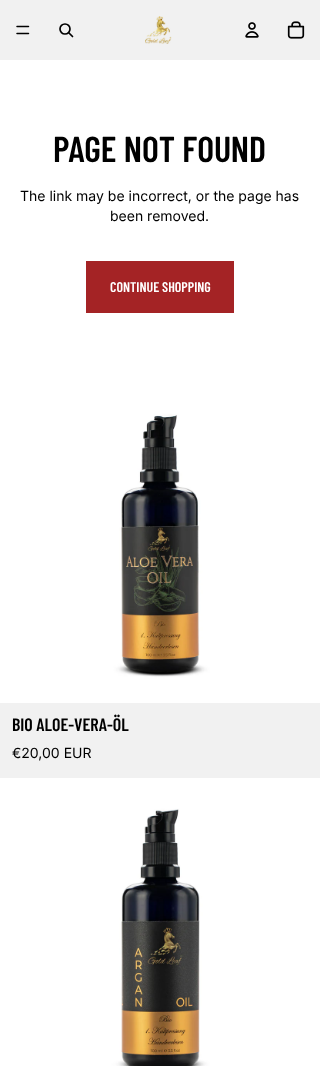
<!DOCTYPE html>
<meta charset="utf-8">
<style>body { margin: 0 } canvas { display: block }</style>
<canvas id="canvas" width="320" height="1066"></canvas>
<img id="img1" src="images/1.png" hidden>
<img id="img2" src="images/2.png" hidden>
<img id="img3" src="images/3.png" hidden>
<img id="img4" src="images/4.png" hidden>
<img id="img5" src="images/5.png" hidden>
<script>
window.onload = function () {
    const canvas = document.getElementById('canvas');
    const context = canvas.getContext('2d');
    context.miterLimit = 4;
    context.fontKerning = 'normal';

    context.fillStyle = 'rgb(255, 255, 255)';
    context.fillRect(0, 0, 320, 1066);
    context.fillStyle = 'rgb(241, 241, 241)';
    context.fillRect(0, 0, 320, 60);
    context.beginPath();
    context.moveTo(17, 26.5);
    context.lineTo(28.5, 26.5);
    context.moveTo(17, 33.5);
    context.lineTo(28.5, 33.5);
    context.strokeStyle = 'rgb(0, 0, 0)';
    context.lineWidth = 1.5;
    context.lineCap = 'round';
    context.stroke();
    context.beginPath();
    context.arc(65, 29, 5, 0, 2 * Math.PI);
    context.lineWidth = 1.7;
    context.stroke();
    context.beginPath();
    context.moveTo(69, 33);
    context.lineTo(72.5, 36.5);
    context.lineJoin = 'round';
    context.stroke();
    context.drawImage(document.getElementById('img1'), 145, 16, 27, 28);
    context.drawImage(document.getElementById('img2'), 245, 22, 14, 16);
    context.drawImage(document.getElementById('img3'), 287, 21, 18, 18);
    context.fillStyle = 'rgb(164, 35, 37)';
    context.fillRect(86, 261, 148, 52);
    context.fillStyle = 'rgb(241, 241, 241)';
    context.fillRect(0, 703, 320, 75);
    context.drawImage(document.getElementById('img4'), 0, 383, 320, 320);
    context.drawImage(document.getElementById('img5'), 0, 779, 320, 287);
    context.font = '600 36px Barlow Condensed';
    context.fillStyle = 'rgb(0, 0, 0)';
    context.fillText('PAGE NOT FOUND', 53, 162);
    context.font = '14px Inter';
    context.fillText('The link may be incorrect, or the page has', 20, 201);
    context.fillText('been removed.', 110, 221);
    context.font = '600 14px Barlow Condensed';
    context.fillStyle = 'rgb(255, 255, 255)';
    context.fillText('CONTINUE SHOPPING', 110, 292);
    context.font = '600 18px Barlow Condensed';
    context.fillStyle = 'rgb(0, 0, 0)';
    context.fillText('BIO ALOE-VERA-ÖL', 12, 731);
    context.font = '14px Inter';
    context.fillText('€20,00 EUR', 12, 758);
};
</script>
